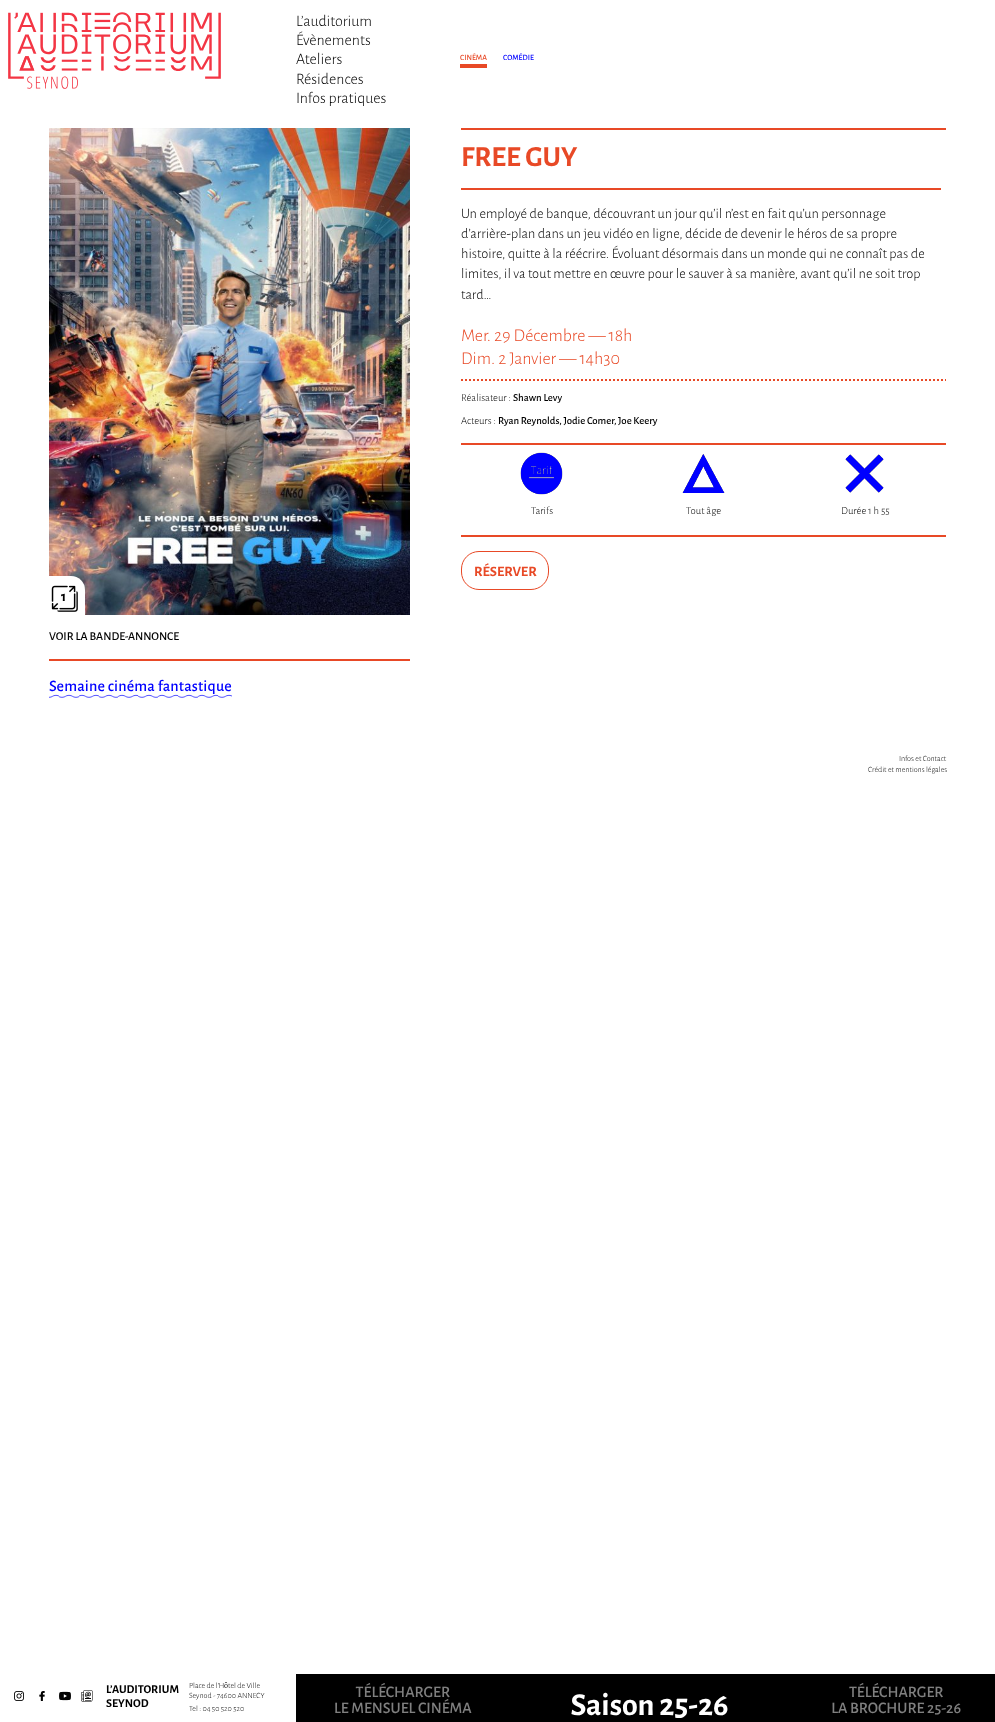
<!DOCTYPE html>
<meta charset="utf-8">
<style>body { margin: 0 } canvas { display: block }</style>
<canvas id="canvas" width="995" height="1722"></canvas>
<img id="img1" src="images/1.png" hidden>
<img id="img2" src="images/2.png" hidden>
<img id="img3" src="images/3.png" hidden>
<img id="img4" src="images/4.png" hidden>
<img id="img5" src="images/5.png" hidden>
<img id="img6" src="images/6.png" hidden>
<img id="img7" src="images/7.png" hidden>
<img id="img8" src="images/8.png" hidden>
<img id="img9" src="images/9.png" hidden>
<img id="img10" src="images/10.png" hidden>
<img id="img11" src="images/11.png" hidden>
<img id="img12" src="images/12.png" hidden>
<script>
window.onload = function () {
    const canvas = document.getElementById('canvas');
    const context = canvas.getContext('2d');
    context.miterLimit = 4;
    context.fontKerning = 'normal';

    context.fillStyle = 'rgb(255, 255, 255)';
    context.fillRect(0, 0, 995, 1722);
    context.drawImage(document.getElementById('img1'), 8, 12, 213, 77);
    context.fillStyle = 'rgb(232, 73, 38)';
    context.fillRect(460, 64, 27, 4);
    context.fillRect(461, 128, 485, 2);
    context.fillRect(461, 188, 480, 2);
    context.drawImage(document.getElementById('img2'), 49, 128, 361, 487);
    context.fillStyle = 'rgb(255, 255, 255)';
    context.beginPath();
    context.roundRect(49, 576, 36, 39, [0, 14, 0, 0]);
    context.fill();
    context.drawImage(document.getElementById('img3'), 51, 585, 27, 27);
    context.beginPath();
    context.moveTo(461, 380);
    context.lineTo(946, 380);
    context.strokeStyle = 'rgb(232, 73, 38)';
    context.lineWidth = 2;
    context.setLineDash([2, 2]);
    context.stroke();
    context.fillStyle = 'rgb(232, 73, 38)';
    context.fillRect(461, 443, 485, 2);
    context.fillRect(461, 535, 485, 2);
    context.drawImage(document.getElementById('img4'), 520, 452, 43, 43);
    context.drawImage(document.getElementById('img5'), 682, 454, 43, 39);
    context.drawImage(document.getElementById('img6'), 845, 454, 39, 39);
    context.beginPath();
    context.roundRect(461.5, 551.5, 87, 38, 17.5);
    context.lineWidth = 1;
    context.setLineDash([]);
    context.stroke();
    context.fillRect(49, 659, 361, 2);
    context.drawImage(document.getElementById('img7'), 49, 694, 183, 4);
    context.drawImage(document.getElementById('img8'), 14, 1691, 10, 10);
    context.drawImage(document.getElementById('img9'), 39, 1691, 6, 10);
    context.drawImage(document.getElementById('img10'), 59, 1691, 12, 10);
    context.drawImage(document.getElementById('img11'), 81, 1690, 12, 12);
    context.fillStyle = 'rgb(0, 0, 0)';
    context.fillRect(296, 1674, 699, 48);
    context.drawImage(document.getElementById('img12'), 335, 1683, 626, 35);
    context.font = '300 16px Alegreya Sans';
    context.fillText('L’auditorium', 296, 26);
    context.fillText('Évènements', 296, 45);
    context.fillText('Ateliers', 296, 64);
    context.fillText('Résidences', 296, 84);
    context.fillText('Infos pratiques', 296, 103);
    context.font = '500 8px Alegreya Sans';
    context.fillStyle = 'rgb(232, 73, 38)';
    context.fillText('CINÉMA', 460, 60);
    context.fillStyle = 'rgb(0, 0, 255)';
    context.fillText('COMÉDIE', 503, 60);
    context.font = 'bold 29px Alegreya Sans';
    context.fillStyle = 'rgb(232, 73, 38)';
    context.fillText('FREE GUY', 461, 166);
    context.font = '300 14.4px Alegreya Sans';
    context.fillStyle = 'rgb(0, 0, 0)';
    context.fillText('Un employé de banque, découvrant un jour qu’il n’est en fait qu’un personnage', 461, 218);
    context.fillText('d’arrière-plan dans un jeu vidéo en ligne, décide de devenir le héros de sa propre', 461, 238);
    context.fillText('histoire, quitte à la réécrire. Évoluant désormais dans un monde qui ne connaît pas de', 461, 258);
    context.fillText('limites, il va tout mettre en œuvre pour le sauver à sa manière, avant qu’il ne soit trop', 461, 278);
    context.fillText('tard…', 461, 299);
    context.font = 'bold 14.4px Alegreya Sans';
    context.fillText('1', 61, 601);
    context.font = '300 18px Alegreya Sans';
    context.fillStyle = 'rgb(232, 73, 38)';
    context.fillText('Mer. 29 Décembre — 18h', 461, 341);
    context.fillText('Dim. 2 Janvier — 14h30', 461, 364);
    context.font = '300 10.75px Alegreya Sans';
    context.fillStyle = 'rgb(0, 0, 0)';
    context.fillText('Réalisateur :', 461, 401);
    context.font = '500 10.75px Alegreya Sans';
    context.fillText('Shawn Levy', 513, 401);
    context.font = '300 10.75px Alegreya Sans';
    context.fillText('Acteurs :', 461, 424);
    context.font = '500 10.75px Alegreya Sans';
    context.fillText('Ryan Reynolds, Jodie Comer, Joe Keery', 498, 424);
    context.font = '300 10.75px Alegreya Sans';
    context.fillText('Tarifs', 531, 514);
    context.fillText('Tout âge', 686, 514);
    context.fillText('Durée 1 h 55', 841, 514);
    context.font = 'bold 14.4px Alegreya Sans';
    context.fillStyle = 'rgb(232, 73, 38)';
    context.fillText('RÉSERVER', 474, 576);
    context.font = '500 12px Alegreya Sans';
    context.fillStyle = 'rgb(0, 0, 0)';
    context.fillText('VOIR LA BANDE-ANNONCE', 49, 640);
    context.letterSpacing = '0.15px';
    context.font = '500 16px Alegreya Sans';
    context.fillStyle = 'rgb(0, 0, 255)';
    context.fillText('Semaine cinéma fantastique', 49, 691);
    context.letterSpacing = '0px';
    context.font = '300 8px Alegreya Sans';
    context.fillStyle = 'rgb(0, 0, 0)';
    context.fillText('Infos et Contact', 899, 761);
    context.fillText('Crédit et mentions légales', 868, 772);
    context.font = 'bold 12px Alegreya Sans';
    context.fillText('L’AUDITORIUM', 106, 1693);
    context.fillText('SEYNOD', 106, 1707);
    context.font = '300 8px Alegreya Sans';
    context.fillText('Place de l’Hôtel de Ville', 189, 1688);
    context.fillText('Seynod - 74600 ANNECY', 189, 1698);
    context.fillText('Tel : 04 50 520 520', 189, 1711);
};
</script>
